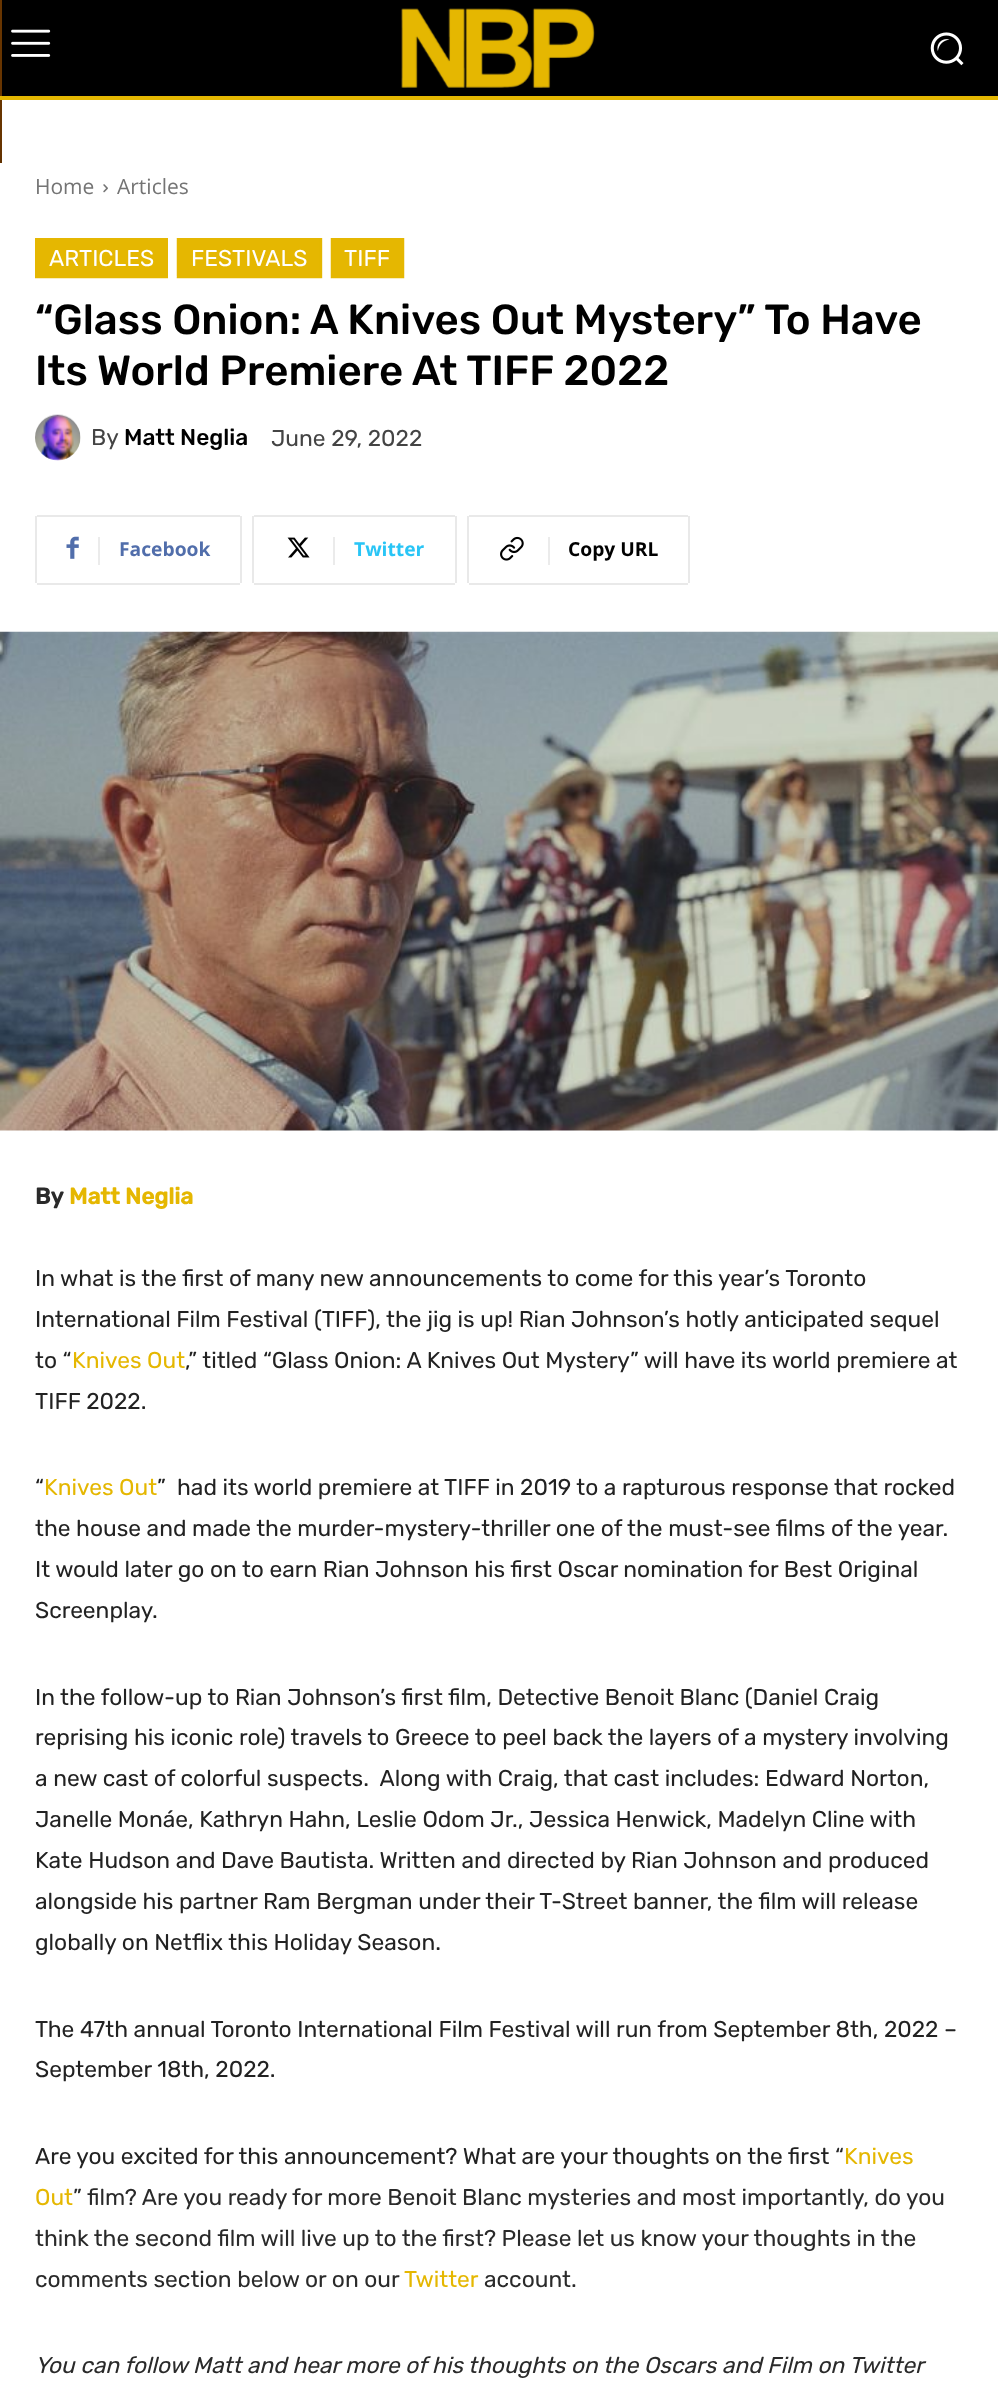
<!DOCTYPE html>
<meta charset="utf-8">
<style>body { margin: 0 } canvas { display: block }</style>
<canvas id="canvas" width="998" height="2382"></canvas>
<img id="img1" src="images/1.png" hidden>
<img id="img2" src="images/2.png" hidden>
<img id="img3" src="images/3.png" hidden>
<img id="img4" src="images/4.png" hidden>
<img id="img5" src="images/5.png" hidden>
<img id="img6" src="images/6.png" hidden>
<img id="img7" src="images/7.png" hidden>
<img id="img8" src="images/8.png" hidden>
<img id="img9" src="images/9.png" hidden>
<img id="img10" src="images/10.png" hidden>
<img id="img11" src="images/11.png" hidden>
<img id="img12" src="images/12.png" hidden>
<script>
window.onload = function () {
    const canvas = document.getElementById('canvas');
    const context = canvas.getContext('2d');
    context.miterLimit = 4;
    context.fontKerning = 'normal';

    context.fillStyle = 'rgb(104, 53, 0)';
    context.fillRect(0, 0, 998, 2382);
    context.fillStyle = 'rgb(0, 0, 0)';
    context.fillRect(2, 0, 996, 96);
    context.drawImage(document.getElementById('img1'), 11, 29, 40, 28);
    context.drawImage(document.getElementById('img2'), 401, 8, 194, 80);
    context.drawImage(document.getElementById('img3'), 930, 32, 34, 34);
    context.fillStyle = 'rgb(229, 183, 1)';
    context.fillRect(0, 96, 998, 4);
    context.fillStyle = 'rgba(0, 0, 0, 0.12)';
    context.filter = 'blur(9px)';
    context.beginPath();
    context.rect(-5, 158, 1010, 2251);
    context.fill();
    context.filter = 'none';
    context.fillStyle = 'rgb(255, 255, 255)';
    context.fillRect(2, 100, 996, 63);
    context.fillRect(0, 163, 998, 2219);
    context.drawImage(document.getElementById('img4'), 103, 184, 5, 9);
    context.fillStyle = 'rgb(229, 183, 1)';
    context.fillRect(35, 238, 133, 40);
    context.drawImage(document.getElementById('img5'), 35, 278, 133, 1);
    context.fillRect(177, 238, 145, 40);
    context.drawImage(document.getElementById('img6'), 176, 238, 147, 41);
    context.fillRect(331, 238, 73, 40);
    context.drawImage(document.getElementById('img7'), 330, 238, 75, 41);
    context.drawImage(document.getElementById('img8'), 35, 414, 46, 47);
    context.fillStyle = 'rgb(233, 233, 233)';
    context.fillRect(35, 516, 2, 67);
    context.drawImage(document.getElementById('img9'), 66, 536, 13, 23);
    context.fillRect(37, 515, 203, 2);
    context.fillRect(240, 516, 2, 67);
    context.fillRect(37, 583, 203, 2);
    context.fillStyle = 'rgb(235, 235, 235)';
    context.fillRect(98, 537, 2, 28);
    context.fillStyle = 'rgb(233, 233, 233)';
    context.fillRect(252, 516, 2, 67);
    context.drawImage(document.getElementById('img10'), 287, 537, 23, 21);
    context.fillRect(254, 515, 201, 2);
    context.fillRect(455, 516, 2, 67);
    context.fillRect(254, 583, 201, 2);
    context.fillStyle = 'rgb(235, 235, 235)';
    context.fillRect(333, 537, 2, 28);
    context.fillStyle = 'rgb(233, 233, 233)';
    context.fillRect(467, 516, 2, 67);
    context.drawImage(document.getElementById('img11'), 500, 536, 24, 25);
    context.fillRect(469, 515, 219, 2);
    context.fillRect(688, 516, 2, 67);
    context.fillRect(469, 583, 219, 2);
    context.fillStyle = 'rgb(235, 235, 235)';
    context.fillRect(548, 537, 2, 28);
    context.drawImage(document.getElementById('img12'), 0, 631, 998, 500);
    context.font = '21px Open Sans';
    context.fillStyle = 'rgb(116, 116, 116)';
    context.fillText('Home', 35, 194);
    context.fillText('Articles', 117, 194);
    context.font = '22.75px Rubik';
    context.fillStyle = 'rgb(255, 255, 255)';
    context.fillText('ARTICLES', 49, 266);
    context.fillText('FESTIVALS', 191, 266);
    context.fillText('TIFF', 344, 266);
    context.font = '500 42px Rubik';
    context.fillStyle = 'rgb(0, 0, 0)';
    context.fillText('“Glass Onion: A Knives Out Mystery” To Have', 35, 334);
    context.fillText('Its World Premiere At TIFF 2022', 35, 385);
    context.font = '22.75px Rubik';
    context.fillStyle = 'rgb(68, 68, 68)';
    context.fillText('By', 91, 445);
    context.font = '500 22.75px Rubik';
    context.fillStyle = 'rgb(0, 0, 0)';
    context.fillText('Matt Neglia', 124, 445);
    context.font = '22.75px Rubik';
    context.fillStyle = 'rgb(68, 68, 68)';
    context.fillText('June 29, 2022', 271, 446);
    context.font = 'bold 19.25px Open Sans';
    context.fillStyle = 'rgb(81, 110, 171)';
    context.fillText('Facebook', 119, 556);
    context.fillStyle = 'rgb(41, 197, 246)';
    context.fillText('Twitter', 354, 556);
    context.fillStyle = 'rgb(0, 0, 0)';
    context.fillText('Copy URL', 568, 556);
    context.font = 'bold 22.75px Rubik';
    context.fillStyle = 'rgb(42, 42, 42)';
    context.fillText('By', 35, 1204);
    context.fillStyle = 'rgb(229, 183, 1)';
    context.fillText('Matt Neglia', 69, 1204);
    context.font = '22.75px Rubik';
    context.fillStyle = 'rgb(34, 34, 34)';
    context.fillText('In what is the first of many new announcements to come for this year’s Toronto', 35, 1286);
    context.fillText('International Film Festival (TIFF), the jig is up! Rian Johnson’s hotly anticipated sequel', 35, 1327);
    context.fillText('to “', 35, 1368);
    context.fillStyle = 'rgb(229, 183, 1)';
    context.fillText('Knives Out', 72, 1368);
    context.fillStyle = 'rgb(34, 34, 34)';
    context.fillText(',” titled “Glass Onion: A Knives Out Mystery” will have its world premiere at', 185, 1368);
    context.fillText('TIFF 2022.', 35, 1409);
    context.fillText('“', 35, 1495);
    context.fillStyle = 'rgb(229, 183, 1)';
    context.fillText('Knives Out', 44, 1495);
    context.fillStyle = 'rgb(34, 34, 34)';
    context.fillText('”  had its world premiere at TIFF in 2019 to a rapturous response that rocked', 157, 1495);
    context.fillText('the house and made the murder-mystery-thriller one of the must-see films of the year.', 35, 1536);
    context.fillText('It would later go on to earn Rian Johnson his first Oscar nomination for Best Original', 35, 1577);
    context.fillText('Screenplay.', 35, 1618);
    context.fillText('In the follow-up to Rian Johnson’s first film, Detective Benoit Blanc (Daniel Craig', 35, 1705);
    context.fillText('reprising his iconic role) travels to Greece to peel back the layers of a mystery involving', 35, 1745);
    context.fillText('a new cast of colorful suspects.  Along with Craig, that cast includes: Edward Norton,', 35, 1786);
    context.fillText('Janelle Monáe, Kathryn Hahn, Leslie Odom Jr., Jessica Henwick, Madelyn Cline with', 35, 1827);
    context.fillText('Kate Hudson and Dave Bautista. Written and directed by Rian Johnson and produced', 35, 1868);
    context.fillText('alongside his partner Ram Bergman under their T-Street banner, the film will release', 35, 1909);
    context.fillText('globally on Netflix this Holiday Season.', 35, 1950);
    context.fillText('The 47th annual Toronto International Film Festival will run from September 8th, 2022 –', 35, 2037);
    context.fillText('September 18th, 2022.', 35, 2077);
    context.fillText('Are you excited for this announcement? What are your thoughts on the first', 35, 2164);
    context.fillStyle = 'rgb(42, 42, 42)';
    context.fillText('“', 835, 2164);
    context.fillStyle = 'rgb(229, 183, 1)';
    context.fillText('Knives', 844, 2164);
    context.fillText('Out', 35, 2205);
    context.fillStyle = 'rgb(42, 42, 42)';
    context.fillText('” film? Are you ready for more Benoit Blanc mysteries and most importantly, do you', 73, 2205);
    context.fillText('think the second film will live up to the first? Please let us know your thoughts in the', 35, 2246);
    context.fillText('comments section below or on our', 35, 2287);
    context.fillStyle = 'rgb(229, 183, 1)';
    context.fillText('Twitter', 404, 2287);
    context.fillStyle = 'rgb(42, 42, 42)';
    context.fillText('account.', 484, 2287);
    context.font = 'italic 22.75px Rubik';
    context.fillText('You can follow Matt and hear more of his thoughts on the Oscars and Film on Twitter', 35, 2373);
};
</script>
